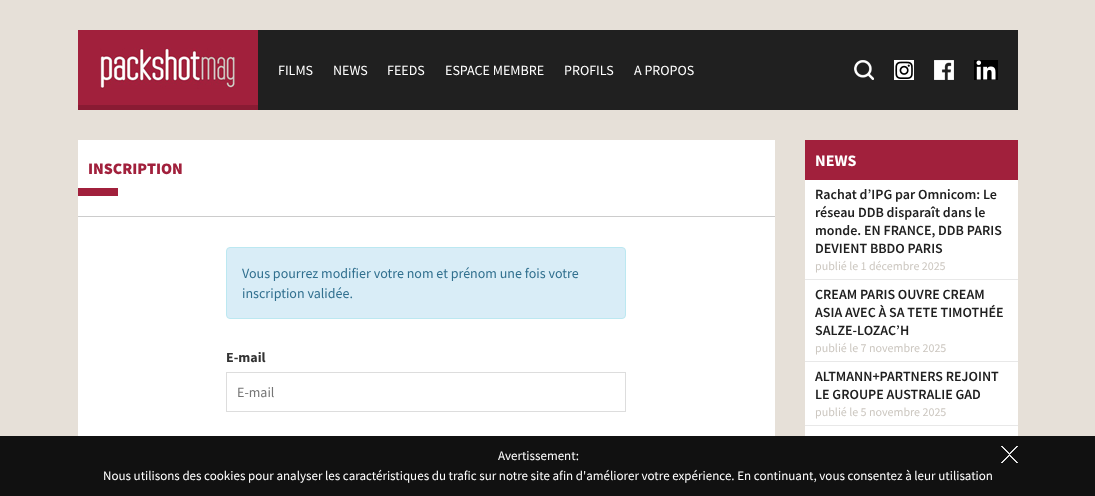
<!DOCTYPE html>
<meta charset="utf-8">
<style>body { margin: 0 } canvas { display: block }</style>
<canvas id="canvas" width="1095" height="496"></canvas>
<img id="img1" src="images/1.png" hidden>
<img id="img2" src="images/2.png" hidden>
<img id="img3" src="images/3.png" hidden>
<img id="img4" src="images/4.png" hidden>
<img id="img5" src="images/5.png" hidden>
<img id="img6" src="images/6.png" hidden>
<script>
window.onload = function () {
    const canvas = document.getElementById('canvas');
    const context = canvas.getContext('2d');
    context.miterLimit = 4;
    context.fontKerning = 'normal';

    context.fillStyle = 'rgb(230, 224, 216)';
    context.fillRect(0, 0, 1095, 496);
    context.fillStyle = 'rgb(32, 32, 32)';
    context.fillRect(258, 30, 760, 80);
    context.fillStyle = 'rgb(161, 32, 60)';
    context.fillRect(78, 30, 180, 75);
    context.fillStyle = 'rgb(137, 27, 51)';
    context.fillRect(78, 105, 180, 5);
    context.drawImage(document.getElementById('img1'), 100, 48, 135, 41);
    context.fillStyle = 'rgb(255, 255, 255)';
    context.fillRect(854, 60, 20, 20);
    context.drawImage(document.getElementById('img2'), 854, 60, 20, 20);
    context.fillRect(894, 60, 20, 20);
    context.drawImage(document.getElementById('img3'), 895, 61, 18, 18);
    context.fillRect(934, 60, 20, 20);
    context.drawImage(document.getElementById('img4'), 934, 60, 20, 20);
    context.fillRect(976, 60, 20, 20);
    context.drawImage(document.getElementById('img5'), 974, 60, 24, 20);
    context.fillRect(78, 140, 697, 296);
    context.fillStyle = 'rgb(204, 204, 204)';
    context.fillRect(78, 216, 697, 1);
    context.fillStyle = 'rgb(161, 32, 60)';
    context.fillRect(78, 188, 40, 8);
    context.fillStyle = 'rgb(217, 237, 247)';
    context.beginPath();
    context.roundRect(226.5, 247.5, 399, 71, 3.5);
    context.fill();
    context.strokeStyle = 'rgb(188, 232, 241)';
    context.stroke();
    context.strokeStyle = 'rgb(221, 221, 221)';
    context.strokeRect(226.5, 372.5, 399, 39);
    context.fillStyle = 'rgb(255, 255, 255)';
    context.fillRect(805, 180, 213, 256);
    context.fillStyle = 'rgb(161, 32, 60)';
    context.fillRect(805, 140, 213, 40);
    context.fillStyle = 'rgb(232, 232, 232)';
    context.fillRect(805, 279, 213, 1);
    context.fillRect(805, 361, 213, 1);
    context.fillRect(805, 425, 213, 1);
    context.fillStyle = 'rgb(17, 17, 17)';
    context.fillRect(0, 436, 1095, 60);
    context.drawImage(document.getElementById('img6'), 1001, 446, 17, 17);
    context.font = '14px Source Sans Pro';
    context.fillStyle = 'rgb(255, 255, 255)';
    context.fillText('FILMS', 278, 75);
    context.fillText('NEWS', 333, 75);
    context.fillText('FEEDS', 387, 75);
    context.fillText('ESPACE MEMBRE', 445, 75);
    context.fillText('PROFILS', 564, 75);
    context.fillText('A PROPOS', 634, 75);
    context.font = '900 16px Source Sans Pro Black';
    context.fillStyle = 'rgb(161, 32, 60)';
    context.fillText('INSCRIPTION', 88, 174);
    context.font = '14px Source Sans Pro';
    context.fillStyle = 'rgb(49, 112, 143)';
    context.fillText('Vous pourrez modifier votre nom et prénom une fois votre', 242, 278);
    context.fillText('inscription validée.', 242, 298);
    context.font = 'bold 14px Source Sans Pro';
    context.fillStyle = 'rgb(51, 51, 51)';
    context.fillText('E-mail', 226, 362);
    context.font = '14px Source Sans Pro';
    context.fillStyle = 'rgb(117, 117, 117)';
    context.fillText('E-mail', 237, 397);
    context.font = 'bold 16px Source Sans Pro';
    context.fillStyle = 'rgb(255, 255, 255)';
    context.fillText('NEWS', 815, 166);
    context.font = '600 14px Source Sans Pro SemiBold';
    context.fillStyle = 'rgb(32, 32, 32)';
    context.fillText('Rachat d’IPG par Omnicom: Le', 815, 199);
    context.fillText('réseau DDB disparaît dans le', 815, 217);
    context.fillText('monde. EN FRANCE, DDB PARIS', 815, 235);
    context.fillText('DEVIENT BBDO PARIS', 815, 253);
    context.font = '12px Source Sans Pro';
    context.fillStyle = 'rgb(204, 199, 192)';
    context.fillText('publié le 1 décembre 2025', 815, 270);
    context.font = '600 14px Source Sans Pro SemiBold';
    context.fillStyle = 'rgb(32, 32, 32)';
    context.fillText('CREAM PARIS OUVRE CREAM', 815, 299);
    context.fillText('ASIA AVEC À SA TETE TIMOTHÉE', 815, 317);
    context.fillText('SALZE-LOZAC’H', 815, 335);
    context.font = '12px Source Sans Pro';
    context.fillStyle = 'rgb(204, 199, 192)';
    context.fillText('publié le 7 novembre 2025', 815, 352);
    context.font = '600 14px Source Sans Pro SemiBold';
    context.fillStyle = 'rgb(32, 32, 32)';
    context.fillText('ALTMANN+PARTNERS REJOINT', 815, 381);
    context.fillText('LE GROUPE AUSTRALIE GAD', 815, 399);
    context.font = '12px Source Sans Pro';
    context.fillStyle = 'rgb(204, 199, 192)';
    context.fillText('publié le 5 novembre 2025', 815, 416);
    context.font = '13px Source Sans Pro';
    context.fillStyle = 'rgb(255, 255, 255)';
    context.fillText('Avertissement:', 498, 460);
    context.fillText('Nous utilisons des cookies pour analyser les caractéristiques du trafic sur notre site afin d\'améliorer votre expérience. En continuant, vous consentez à leur utilisation', 103, 480);
};
</script>
